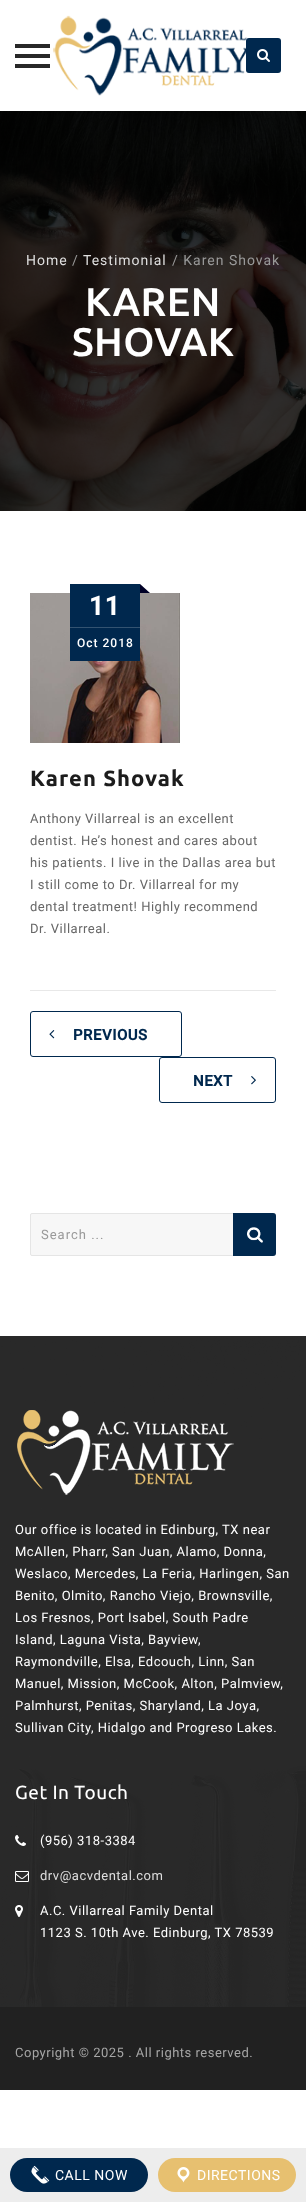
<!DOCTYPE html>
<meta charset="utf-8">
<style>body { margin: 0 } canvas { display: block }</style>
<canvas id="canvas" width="306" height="2202"></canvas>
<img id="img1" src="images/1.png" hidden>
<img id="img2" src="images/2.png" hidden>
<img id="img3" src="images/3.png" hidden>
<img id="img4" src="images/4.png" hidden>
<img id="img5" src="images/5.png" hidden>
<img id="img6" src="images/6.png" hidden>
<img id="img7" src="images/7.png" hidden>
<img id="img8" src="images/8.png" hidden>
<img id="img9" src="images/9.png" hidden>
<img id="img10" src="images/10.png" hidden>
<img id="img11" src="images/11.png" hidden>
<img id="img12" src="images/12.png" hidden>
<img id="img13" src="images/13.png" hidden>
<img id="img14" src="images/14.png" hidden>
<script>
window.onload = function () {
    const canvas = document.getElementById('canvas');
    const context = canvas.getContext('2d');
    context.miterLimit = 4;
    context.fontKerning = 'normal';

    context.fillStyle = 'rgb(255, 255, 255)';
    context.fillRect(0, 0, 306, 2202);
    context.drawImage(document.getElementById('img1'), 53, 15, 194, 81);
    context.fillStyle = 'rgb(40, 40, 40)';
    context.fillRect(15, 54, 35, 4);
    context.fillRect(15, 44, 35, 4);
    context.fillRect(15, 64, 35, 4);
    context.fillStyle = 'rgb(0, 40, 78)';
    context.beginPath();
    context.roundRect(246, 38, 35, 35, 3);
    context.fill();
    context.drawImage(document.getElementById('img2'), 257, 49, 13, 13);
    context.drawImage(document.getElementById('img3'), 0, 111, 306, 400);
    context.drawImage(document.getElementById('img4'), 30, 593, 150, 150);
    context.fillRect(70, 584, 70, 77);
    context.fillStyle = 'rgb(0, 0, 38)';
    context.beginPath();
    context.moveTo(150, 593);
    context.lineTo(140, 593);
    context.lineTo(140, 584);
    context.closePath();
    context.fill();
    context.fillStyle = 'rgb(51, 83, 113)';
    context.fillRect(70, 627, 70, 1);
    context.fillStyle = 'rgb(232, 232, 232)';
    context.fillRect(30, 990, 246, 1);
    context.beginPath();
    context.roundRect(30.5, 1011.5, 151, 45, 2.5);
    context.strokeStyle = 'rgb(0, 40, 78)';
    context.stroke();
    context.drawImage(document.getElementById('img5'), 49, 1030, 6, 9);
    context.beginPath();
    context.roundRect(159.5, 1057.5, 116, 45, 2.5);
    context.stroke();
    context.drawImage(document.getElementById('img6'), 251, 1076, 5, 9);
    context.fillStyle = 'rgb(247, 247, 247)';
    context.beginPath();
    context.roundRect(30.5, 1213.5, 245, 42, 1.5);
    context.fill();
    context.strokeStyle = 'rgb(229, 229, 229)';
    context.stroke();
    context.fillStyle = 'rgb(0, 40, 78)';
    context.beginPath();
    context.roundRect(233, 1213, 43, 43, [0, 3, 3, 0]);
    context.fill();
    context.drawImage(document.getElementById('img7'), 247, 1227, 16, 16);
    context.drawImage(document.getElementById('img8'), 0, 1336, 306, 754);
    context.drawImage(document.getElementById('img9'), 17, 1410, 217, 85);
    context.drawImage(document.getElementById('img10'), 15, 1835, 11, 11);
    context.drawImage(document.getElementById('img11'), 15, 1871, 14, 11);
    context.drawImage(document.getElementById('img12'), 15, 1905, 8, 12);
    context.fillStyle = 'rgba(33, 33, 33, 0.97)';
    context.fillRect(0, 2007, 306, 83);
    context.fillStyle = 'rgb(237, 237, 237)';
    context.fillRect(0, 2148, 306, 54);
    context.fillStyle = 'rgb(0, 40, 78)';
    context.beginPath();
    context.roundRect(10, 2158, 138, 34, 17);
    context.fill();
    context.drawImage(document.getElementById('img13'), 31, 2165, 19, 19);
    context.fillStyle = 'rgb(231, 192, 112)';
    context.beginPath();
    context.roundRect(158, 2158, 138, 34, 17);
    context.fill();
    context.drawImage(document.getElementById('img14'), 177, 2167, 13, 16);
    context.letterSpacing = '1px';
    context.font = '14px Roboto';
    context.fillStyle = 'rgb(223, 223, 223)';
    context.fillText('Home', 26, 265);
    context.fillStyle = 'rgb(153, 153, 153)';
    context.fillText('/', 72, 265);
    context.fillStyle = 'rgb(223, 223, 223)';
    context.fillText('Testimonial', 83, 265);
    context.fillStyle = 'rgb(153, 153, 153)';
    context.fillText('/ Karen Shovak', 172, 265);
    context.letterSpacing = '0.5px';
    context.font = '500 40px Ubuntu';
    context.fillStyle = 'rgb(255, 255, 255)';
    context.fillText('KAREN', 85, 316);
    context.fillText('SHOVAK', 72, 356);
    context.letterSpacing = '1px';
    context.font = 'bold 26px Roboto';
    context.fillText('11', 89, 615);
    context.font = '500 12px Roboto';
    context.fillText('Oct 2018', 77, 647);
    context.font = 'bold 22px Ubuntu';
    context.fillStyle = 'rgb(28, 28, 28)';
    context.fillText('Karen Shovak', 30, 786);
    context.letterSpacing = '0.5px';
    context.font = '13px Roboto';
    context.fillStyle = 'rgb(103, 103, 103)';
    context.fillText('Anthony Villarreal is an excellent', 30, 823);
    context.fillText('dentist. He’s honest and cares about', 30, 845);
    context.fillText('his patients. I live in the Dallas area but', 30, 867);
    context.fillText('I still come to Dr. Villarreal for my', 30, 889);
    context.fillText('dental treatment! Highly recommend', 30, 911);
    context.fillText('Dr. Villarreal.', 30, 933);
    context.font = 'bold 15px Roboto';
    context.fillStyle = 'rgb(0, 40, 78)';
    context.fillText('PREVIOUS', 73, 1040);
    context.fillText('NEXT', 193, 1086);
    context.letterSpacing = '1px';
    context.font = '13px Roboto';
    context.fillStyle = 'rgb(153, 153, 153)';
    context.fillText('Search ...', 41, 1239);
    context.letterSpacing = '0.5px';
    context.fillStyle = 'rgb(255, 255, 255)';
    context.fillText('Our office is located in Edinburg, TX near', 15, 1534);
    context.fillText('McAllen, Pharr, San Juan, Alamo, Donna,', 15, 1556);
    context.fillText('Weslaco, Mercedes, La Feria, Harlingen, San', 15, 1578);
    context.fillText('Benito, Olmito, Rancho Viejo, Brownsville,', 15, 1600);
    context.fillText('Los Fresnos, Port Isabel, South Padre', 15, 1622);
    context.fillText('Island, Laguna Vista, Bayview,', 15, 1644);
    context.fillText('Raymondville, Elsa, Edcouch, Linn, San', 15, 1666);
    context.fillText('Manuel, Mission, McCook, Alton, Palmview,', 15, 1688);
    context.fillText('Palmhurst, Penitas, Sharyland, La Joya,', 15, 1710);
    context.fillText('Sullivan City, Hidalgo and Progreso Lakes.', 15, 1732);
    context.font = '19px Ubuntu';
    context.fillText('Get In Touch', 15, 1799);
    context.font = '13px Roboto';
    context.fillText('(956) 318-3384', 40, 1845);
    context.fillStyle = 'rgb(223, 223, 223)';
    context.fillText('drv@acvdental.com', 40, 1880);
    context.fillStyle = 'rgb(255, 255, 255)';
    context.fillText('A.C. Villarreal Family Dental', 40, 1915);
    context.fillText('1123 S. 10th Ave. Edinburg, TX 78539', 40, 1937);
    context.fillStyle = 'rgb(166, 166, 166)';
    context.fillText('Copyright © 2025 . All rights reserved.', 15, 2057);
    context.font = '14px Roboto';
    context.fillStyle = 'rgb(255, 255, 255)';
    context.fillText('CALL NOW', 55, 2180);
    context.fillText('DIRECTIONS', 197, 2180);
};
</script>
